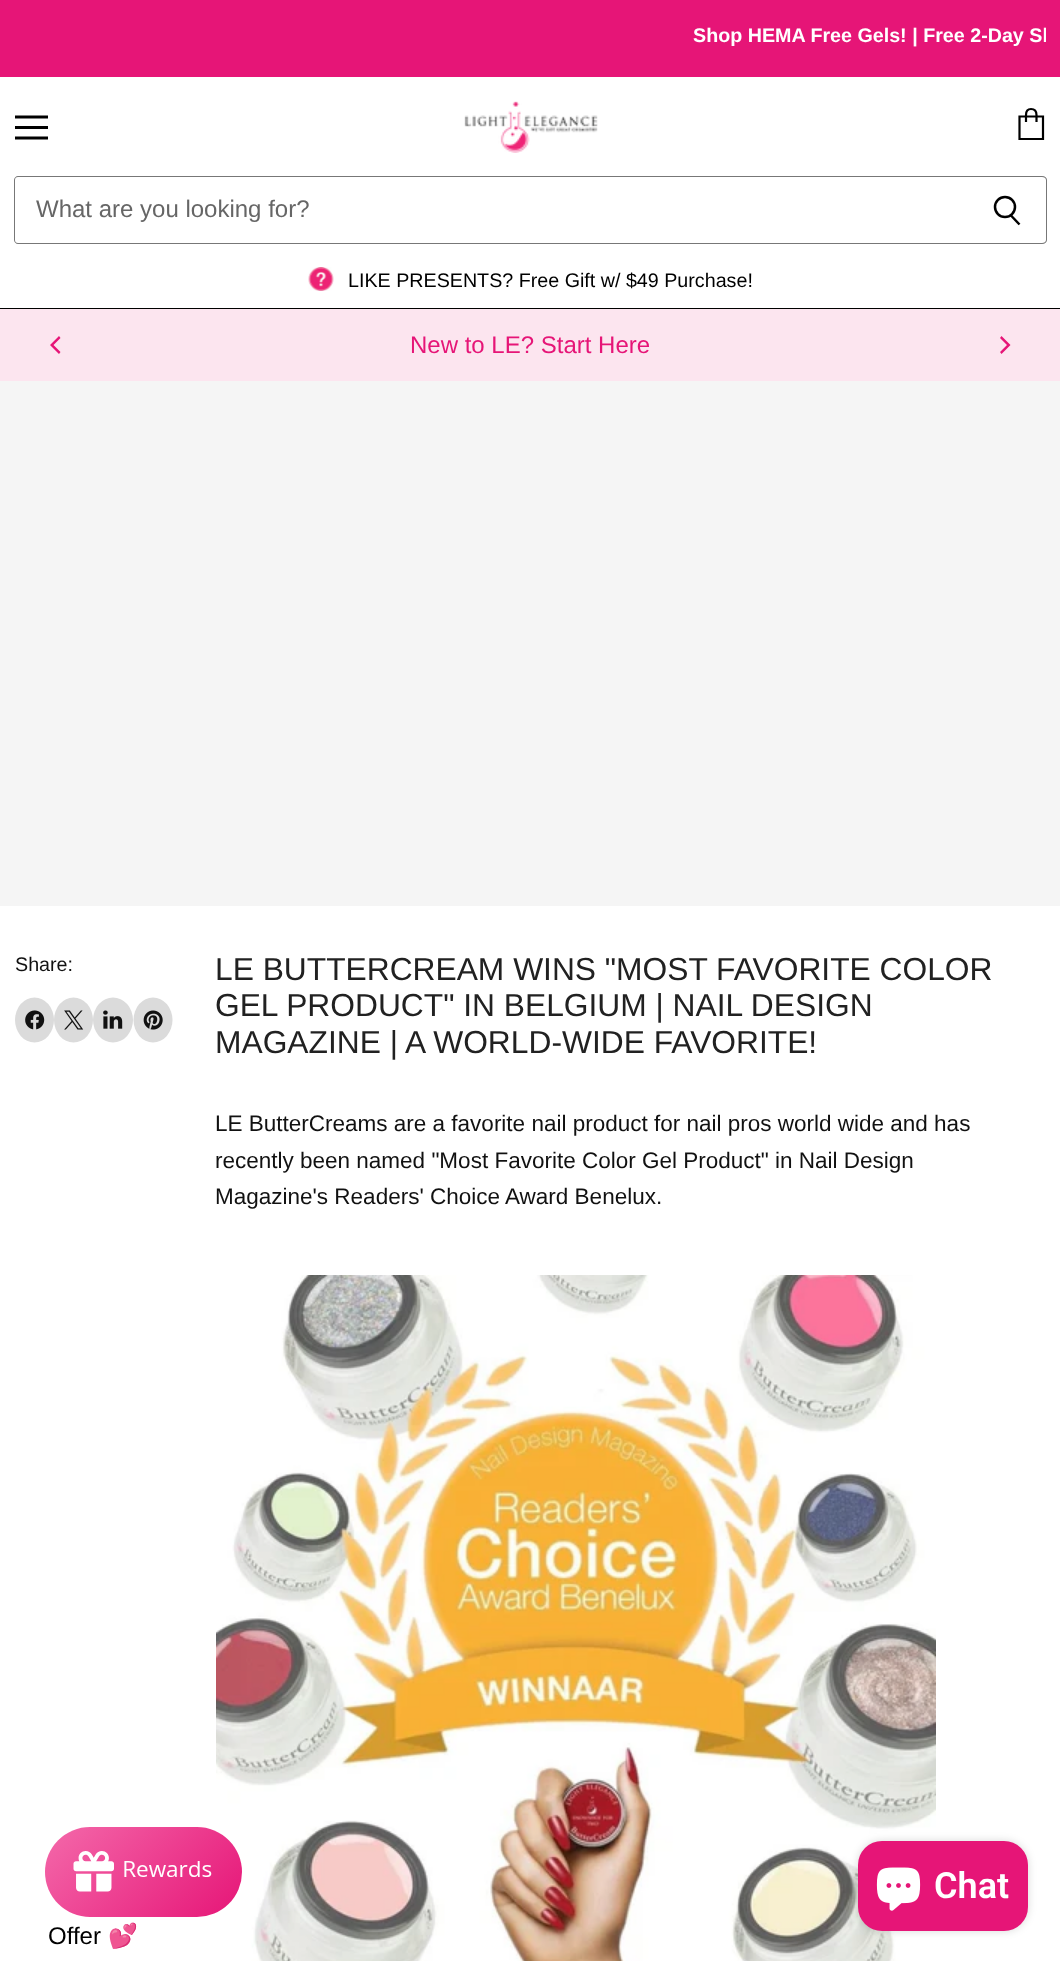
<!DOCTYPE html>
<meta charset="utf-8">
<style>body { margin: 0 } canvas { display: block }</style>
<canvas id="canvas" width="1060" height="1961"></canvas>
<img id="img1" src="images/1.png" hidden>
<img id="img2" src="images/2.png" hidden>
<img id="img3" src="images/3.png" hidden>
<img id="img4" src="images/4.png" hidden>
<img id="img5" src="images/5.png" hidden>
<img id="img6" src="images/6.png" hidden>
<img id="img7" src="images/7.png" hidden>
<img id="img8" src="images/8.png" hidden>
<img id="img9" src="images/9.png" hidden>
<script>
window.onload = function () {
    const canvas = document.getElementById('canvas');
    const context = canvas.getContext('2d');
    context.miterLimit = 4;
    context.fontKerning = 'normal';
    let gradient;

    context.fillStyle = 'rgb(255, 255, 255)';
    context.fillRect(0, 0, 1060, 1961);
    context.fillStyle = 'rgb(230, 21, 119)';
    context.fillRect(0, 0, 1060, 77);
    context.fillStyle = 'rgb(0, 0, 0)';
    context.fillRect(0, 308, 1060, 1);
    context.beginPath();
    context.moveTo(46.5, 117);
    context.lineTo(16.5, 117);
    context.strokeStyle = 'rgb(0, 0, 0)';
    context.lineWidth = 3;
    context.lineCap = 'square';
    context.lineJoin = 'round';
    context.stroke();
    context.fillRect(15, 126, 33, 3);
    context.beginPath();
    context.moveTo(46.5, 138);
    context.lineTo(16.5, 138);
    context.stroke();
    context.beginPath();
    context.moveTo(1019.5, 116.5);
    context.lineTo(1043, 116.5);
    context.lineTo(1043, 139);
    context.lineTo(1019.5, 139);
    context.closePath();
    context.moveTo(1036.5, 122);
    context.lineTo(1036.5, 115);
    context.bezierCurveTo(1036.5, 110.5, 1034, 109, 1031, 109);
    context.bezierCurveTo(1028.5, 109, 1026, 110.5, 1026, 115);
    context.lineTo(1026, 122);
    context.lineWidth = 2.2;
    context.lineCap = 'butt';
    context.lineJoin = 'miter';
    context.stroke();
    context.drawImage(document.getElementById('img1'), 464, 101, 134, 52);
    context.fillStyle = 'rgb(119, 119, 119)';
    context.beginPath();
    context.moveTo(18, 176);
    context.lineTo(968, 176);
    context.lineTo(968, 244);
    context.lineTo(18, 244);
    context.bezierCurveTo(16, 244, 14, 242, 14, 240);
    context.lineTo(14, 180);
    context.bezierCurveTo(14, 178, 16, 176, 18, 176);
    context.closePath();
    context.moveTo(18, 177);
    context.lineTo(968, 177);
    context.lineTo(968, 243);
    context.lineTo(18, 243);
    context.bezierCurveTo(16, 243, 15, 242, 15, 240);
    context.lineTo(15, 180);
    context.bezierCurveTo(15, 178, 16, 177, 18, 177);
    context.closePath();
    context.fill('evenodd');
    context.beginPath();
    context.moveTo(968, 176);
    context.lineTo(1042, 176);
    context.bezierCurveTo(1045, 176, 1047, 178, 1047, 180);
    context.lineTo(1047, 240);
    context.bezierCurveTo(1047, 242, 1045, 244, 1042, 244);
    context.lineTo(968, 244);
    context.closePath();
    context.moveTo(968, 177);
    context.lineTo(1042, 177);
    context.bezierCurveTo(1044, 177, 1046, 178, 1046, 180);
    context.lineTo(1046, 240);
    context.bezierCurveTo(1046, 242, 1044, 243, 1042, 243);
    context.lineTo(968, 243);
    context.closePath();
    context.fill('evenodd');
    context.beginPath();
    context.moveTo(1019.5, 224.5);
    context.lineTo(1011, 215.5);
    context.lineWidth = 2.5;
    context.stroke();
    context.beginPath();
    context.arc(1005, 207, 10, 0, 2 * Math.PI);
    context.stroke();
    context.drawImage(document.getElementById('img2'), 308, 267, 26, 24);
    context.fillStyle = 'rgb(252, 229, 239)';
    context.fillRect(0, 309, 1060, 72);
    context.fillStyle = 'rgb(230, 21, 119)';
    context.beginPath();
    context.moveTo(50, 345);
    context.lineTo(59, 354);
    context.lineTo(60.5, 352);
    context.lineTo(53.5, 345);
    context.lineTo(60.5, 338);
    context.lineTo(59, 336);
    context.closePath();
    context.fill();
    context.beginPath();
    context.moveTo(1010.5, 345);
    context.lineTo(1001.5, 336);
    context.lineTo(1000, 338);
    context.lineTo(1007, 345);
    context.lineTo(1000, 352);
    context.lineTo(1001.5, 354);
    context.closePath();
    context.fill();
    context.fillStyle = 'rgb(245, 245, 245)';
    context.fillRect(0, 381, 1060, 525);
    context.fillStyle = 'rgb(219, 219, 219)';
    context.beginPath();
    context.ellipse(34.5, 1020, 19.5, 22.5, 0, 0, 2 * Math.PI);
    context.fill();
    context.drawImage(document.getElementById('img3'), 25, 1010, 20, 20);
    context.beginPath();
    context.ellipse(73.5, 1020, 19.5, 22.5, 0, 0, 2 * Math.PI);
    context.fill();
    context.drawImage(document.getElementById('img4'), 64, 1010, 20, 20);
    context.beginPath();
    context.ellipse(113, 1020, 20, 22.5, 0, 0, 2 * Math.PI);
    context.fill();
    context.drawImage(document.getElementById('img5'), 103, 1010, 20, 19);
    context.beginPath();
    context.ellipse(153, 1020, 19.5, 22.5, 0, 0, 2 * Math.PI);
    context.fill();
    context.drawImage(document.getElementById('img6'), 143, 1010, 20, 20);
    context.drawImage(document.getElementById('img7'), 216, 1275, 720, 686);
    gradient = context.createLinearGradient(72, 1800, 215, 1944);
    gradient.addColorStop(0, 'rgb(244, 105, 170)');
    gradient.addColorStop(1, 'rgb(230, 21, 119)');
    context.fillStyle = gradient;
    context.beginPath();
    context.roundRect(45, 1827, 197, 90, 45);
    context.fill();
    context.drawImage(document.getElementById('img8'), 73, 1851, 139, 41);
    context.fillStyle = 'rgba(0, 0, 0, 0.15)';
    context.filter = 'blur(4px)';
    context.beginPath();
    context.roundRect(858, 1841, 170, 90, 24);
    context.fill();
    context.filter = 'none';
    context.fillStyle = 'rgb(230, 21, 119)';
    context.beginPath();
    context.roundRect(858, 1841, 170, 90, 24);
    context.fill();
    context.drawImage(document.getElementById('img9'), 876, 1867, 45, 44);
    context.save();
    context.beginPath();
    context.rect(15, 23, 1031, 25);
    context.clip();
    context.font = 'bold 19.7px Liberation Sans';
    context.fillStyle = 'rgb(255, 255, 255)';
    context.fillText('Shop HEMA Free Gels! | Free 2-Day Sh', 693, 42);
    context.restore();
    context.font = '24px Liberation Sans';
    context.fillStyle = 'rgb(102, 102, 102)';
    context.fillText('What are you looking for?', 36, 217);
    context.font = '19.7px Liberation Sans';
    context.fillStyle = 'rgb(0, 0, 0)';
    context.fillText('LIKE PRESENTS? Free Gift w/ $49 Purchase!', 348, 287);
    context.font = '24px Liberation Sans';
    context.fillStyle = 'rgb(230, 21, 119)';
    context.fillText('New to LE? Start Here', 410, 353);
    context.font = '19.7px Liberation Sans';
    context.fillStyle = 'rgb(17, 17, 17)';
    context.fillText('Share:', 15, 971);
    context.font = '31.75px Liberation Sans';
    context.fillStyle = 'rgb(33, 33, 33)';
    context.fillText('LE BUTTERCREAM WINS "MOST FAVORITE COLOR', 215, 980);
    context.fillText('GEL PRODUCT" IN BELGIUM | NAIL DESIGN', 215, 1016);
    context.fillText('MAGAZINE | A WORLD-WIDE FAVORITE!', 215, 1053);
    context.font = '22.5px Liberation Sans';
    context.fillStyle = 'rgb(17, 17, 17)';
    context.fillText('LE ButterCreams are a favorite nail product for nail pros world wide and has', 215, 1131);
    context.fillText('recently been named "Most Favorite Color Gel Product" in Nail Design', 215, 1168);
    context.fillText('Magazine\'s Readers\' Choice Award Benelux.', 215, 1204);
    context.font = '600 36px Roboto';
    context.fillStyle = 'rgb(255, 255, 255)';
    context.fillText('Chat', 934, 1898);
    context.font = '24px Liberation Sans';
    context.fillStyle = 'rgb(0, 0, 0)';
    context.fillText('Offer', 48, 1944);
    context.font = '24px Noto Color Emoji';
    context.fillText('💕', 108, 1944);
};
</script>
